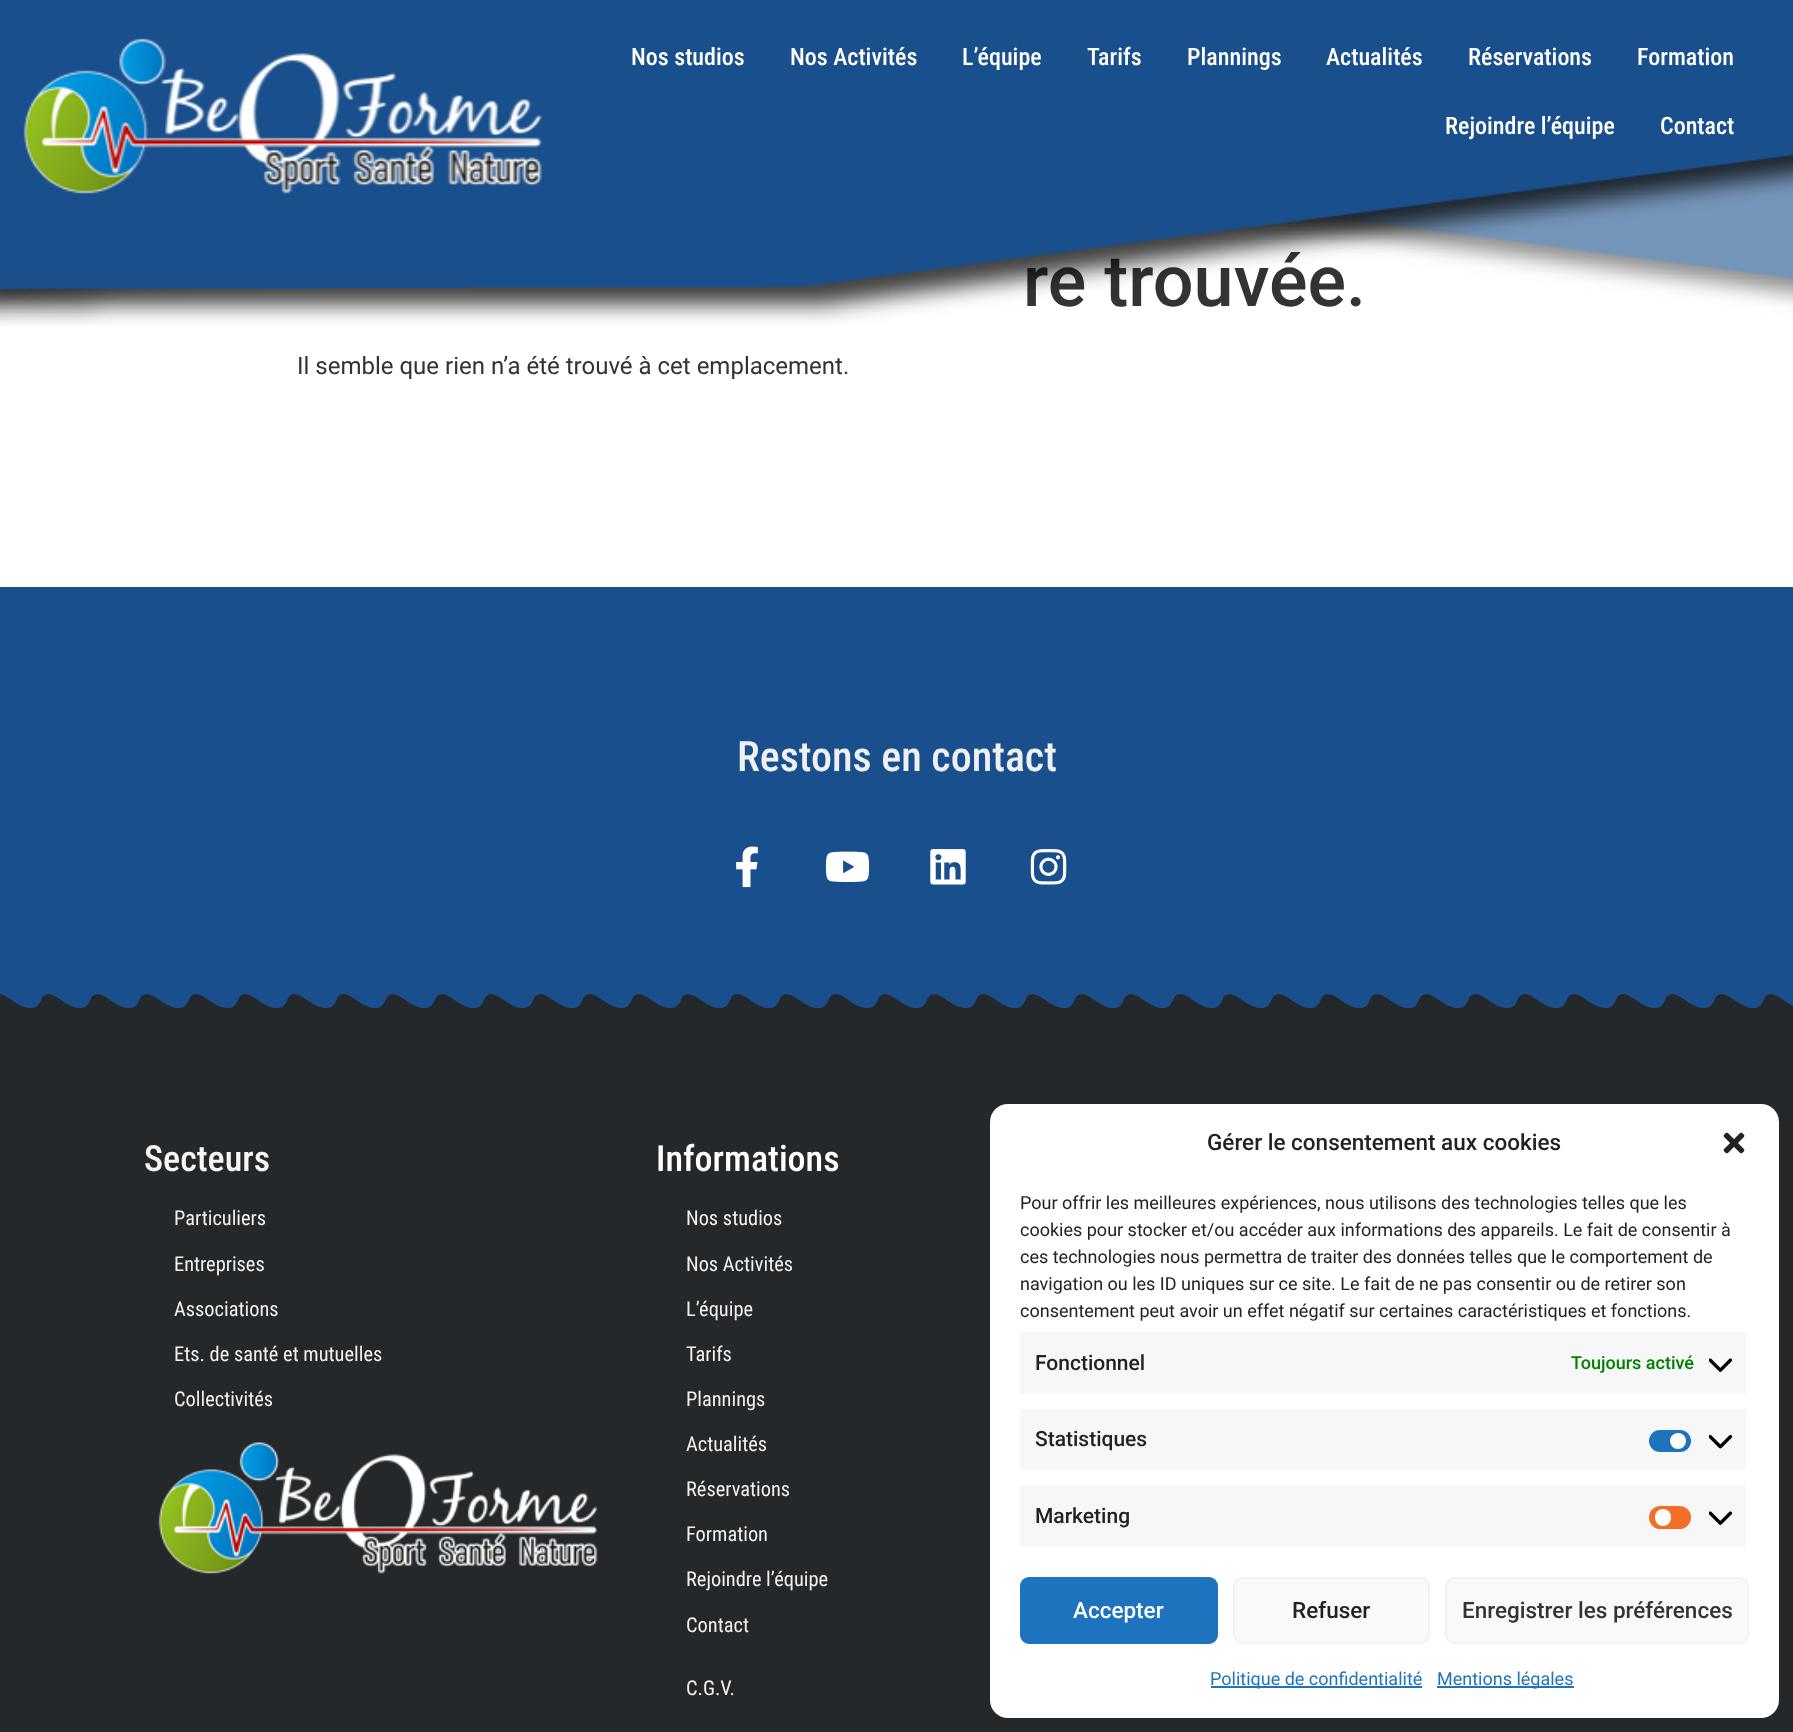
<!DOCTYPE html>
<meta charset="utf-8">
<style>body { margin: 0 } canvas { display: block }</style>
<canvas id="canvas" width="1793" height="1732"></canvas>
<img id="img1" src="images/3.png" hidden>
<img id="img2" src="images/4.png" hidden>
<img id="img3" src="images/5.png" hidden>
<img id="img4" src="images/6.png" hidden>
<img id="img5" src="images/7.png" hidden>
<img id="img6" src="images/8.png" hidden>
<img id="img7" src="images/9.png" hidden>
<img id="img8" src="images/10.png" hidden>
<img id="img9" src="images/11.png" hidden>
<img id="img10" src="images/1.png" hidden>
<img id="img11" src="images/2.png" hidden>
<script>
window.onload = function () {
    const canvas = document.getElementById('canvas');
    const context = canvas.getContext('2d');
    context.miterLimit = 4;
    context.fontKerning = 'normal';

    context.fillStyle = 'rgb(255, 255, 255)';
    context.fillRect(0, 0, 1793, 1732);
    context.fillStyle = 'rgb(24, 79, 140)';
    context.fillRect(0, 587, 1793, 405);
    context.drawImage(document.getElementById('img1'), 736, 846, 22, 42);
    context.drawImage(document.getElementById('img2'), 825, 851, 45, 31);
    context.drawImage(document.getElementById('img3'), 930, 849, 36, 36);
    context.drawImage(document.getElementById('img4'), 1030, 849, 37, 36);
    context.fillStyle = 'rgb(37, 40, 43)';
    context.fillRect(0, 994, 1793, 738);
    context.drawImage(document.getElementById('img5'), 0, 992, 1793, 16);
    context.drawImage(document.getElementById('img6'), 158, 1442, 440, 132);
    context.fillStyle = 'rgb(255, 255, 255)';
    context.beginPath();
    context.roundRect(990, 1104, 789, 614, 18);
    context.fill();
    context.drawImage(document.getElementById('img7'), 1723, 1132, 22, 22);
    context.fillStyle = 'rgb(247, 247, 247)';
    context.fillRect(1020, 1332, 726, 62);
    context.drawImage(document.getElementById('img8'), 1709, 1358, 24, 14);
    context.fillRect(1020, 1409, 726, 61);
    context.fillStyle = 'rgb(30, 115, 190)';
    context.beginPath();
    context.roundRect(1649, 1430, 42, 22, 11);
    context.fill();
    context.fillStyle = 'rgb(255, 255, 255)';
    context.beginPath();
    context.arc(1678, 1441, 8, 0, 2 * Math.PI);
    context.fill();
    context.drawImage(document.getElementById('img9'), 1709, 1435, 24, 14);
    context.fillStyle = 'rgb(247, 247, 247)';
    context.fillRect(1020, 1485, 726, 62);
    context.fillStyle = 'rgb(245, 110, 40)';
    context.beginPath();
    context.roundRect(1649, 1506, 42, 23, 11.5);
    context.fill();
    context.fillStyle = 'rgb(255, 255, 255)';
    context.beginPath();
    context.roundRect(1655, 1509, 16, 17, 8);
    context.fill();
    context.drawImage(document.getElementById('img8'), 1709, 1511, 24, 14);
    context.fillStyle = 'rgb(30, 115, 190)';
    context.beginPath();
    context.roundRect(1021, 1578, 196, 65, 8);
    context.fill();
    context.strokeStyle = 'rgb(30, 115, 190)';
    context.lineWidth = 2;
    context.stroke();
    context.fillStyle = 'rgb(249, 249, 249)';
    context.beginPath();
    context.roundRect(1234, 1578, 195, 65, 8);
    context.fill();
    context.strokeStyle = 'rgb(242, 242, 242)';
    context.stroke();
    context.beginPath();
    context.roundRect(1446, 1578, 302, 65, 8);
    context.fill();
    context.stroke();
    context.fillStyle = 'rgb(30, 115, 190)';
    context.fillRect(1211, 1686, 211, 2);
    context.fillRect(1437, 1686, 137, 2);
    context.font = '500 72px Roboto';
    context.fillStyle = 'rgb(51, 51, 51)';
    context.fillText('re trouvée.', 1023, 306);
    context.drawImage(document.getElementById('img10'), 0, 0, 1793, 326);
    context.font = '500 24px Roboto Condensed';
    context.fillStyle = 'rgb(255, 255, 255)';
    context.fillText('Contact', 1660, 134);
    context.fillText('Rejoindre l’équipe', 1445, 134);
    context.fillText('Formation', 1637, 65);
    context.fillText('Réservations', 1468, 65);
    context.fillText('Actualités', 1326, 65);
    context.fillText('Plannings', 1187, 65);
    context.fillText('Tarifs', 1087, 65);
    context.fillText('L’équipe', 962, 65);
    context.fillText('Nos Activités', 790, 65);
    context.fillText('Nos studios', 631, 65);
    context.drawImage(document.getElementById('img11'), 23, 38, 519, 156);
    context.font = '24px Roboto';
    context.fillStyle = 'rgb(51, 51, 51)';
    context.fillText('Il semble que rien n’a été trouvé à cet emplacement.', 297, 374);
    context.font = '500 42px Roboto Condensed';
    context.fillStyle = 'rgb(240, 240, 240)';
    context.fillText('Restons en contact', 737, 771);
    context.font = '500 36px Roboto Condensed';
    context.fillStyle = 'rgb(246, 246, 246)';
    context.fillText('Secteurs', 144, 1171);
    context.font = '20.4px Roboto Condensed';
    context.fillStyle = 'rgb(240, 240, 240)';
    context.fillText('Particuliers', 174, 1225);
    context.fillText('Entreprises', 174, 1271);
    context.fillText('Associations', 174, 1316);
    context.fillText('Ets. de santé et mutuelles', 174, 1361);
    context.fillText('Collectivités', 174, 1406);
    context.font = '500 36px Roboto Condensed';
    context.fillStyle = 'rgb(255, 255, 255)';
    context.fillText('Informations', 656, 1171);
    context.font = '20.4px Roboto Condensed';
    context.fillStyle = 'rgb(240, 240, 240)';
    context.fillText('Nos studios', 686, 1225);
    context.fillText('Nos Activités', 686, 1271);
    context.fillText('L’équipe', 686, 1316);
    context.fillText('Tarifs', 686, 1361);
    context.fillText('Plannings', 686, 1406);
    context.fillText('Actualités', 686, 1451);
    context.fillText('Réservations', 686, 1496);
    context.fillText('Formation', 686, 1541);
    context.fillText('Rejoindre l’équipe', 686, 1586);
    context.fillText('Contact', 686, 1632);
    context.fillText('C.G.V.', 686, 1695);
    context.font = '500 22.5px Roboto';
    context.fillStyle = 'rgb(34, 34, 34)';
    context.fillText('Gérer le consentement aux cookies', 1207, 1150);
    context.font = '18px Roboto';
    context.fillText('Pour offrir les meilleures expériences, nous utilisons des technologies telles que les', 1020, 1209);
    context.fillText('cookies pour stocker et/ou accéder aux informations des appareils. Le fait de consentir à', 1020, 1236);
    context.fillText('ces technologies nous permettra de traiter des données telles que le comportement de', 1020, 1263);
    context.fillText('navigation ou les ID uniques sur ce site. Le fait de ne pas consentir ou de retirer son', 1020, 1290);
    context.fillText('consentement peut avoir un effet négatif sur certaines caractéristiques et fonctions.', 1020, 1317);
    context.font = '500 21px Roboto';
    context.fillText('Fonctionnel', 1035, 1370);
    context.font = '500 18px Roboto';
    context.fillStyle = 'rgb(0, 128, 0)';
    context.fillText('Toujours activé', 1571, 1369);
    context.font = '500 21px Roboto';
    context.fillStyle = 'rgb(34, 34, 34)';
    context.fillText('Statistiques', 1035, 1446);
    context.fillText('Marketing', 1035, 1523);
    context.font = '500 22.5px Roboto';
    context.fillStyle = 'rgb(255, 255, 255)';
    context.fillText('Accepter', 1073, 1618);
    context.fillStyle = 'rgb(34, 34, 34)';
    context.fillText('Refuser', 1292, 1618);
    context.fillStyle = 'rgb(51, 51, 51)';
    context.fillText('Enregistrer les préférences', 1462, 1618);
    context.font = '18px Roboto';
    context.fillStyle = 'rgb(30, 115, 190)';
    context.fillText('Politique de confidentialité', 1210, 1685);
    context.fillText('Mentions légales', 1437, 1685);
};
</script>
